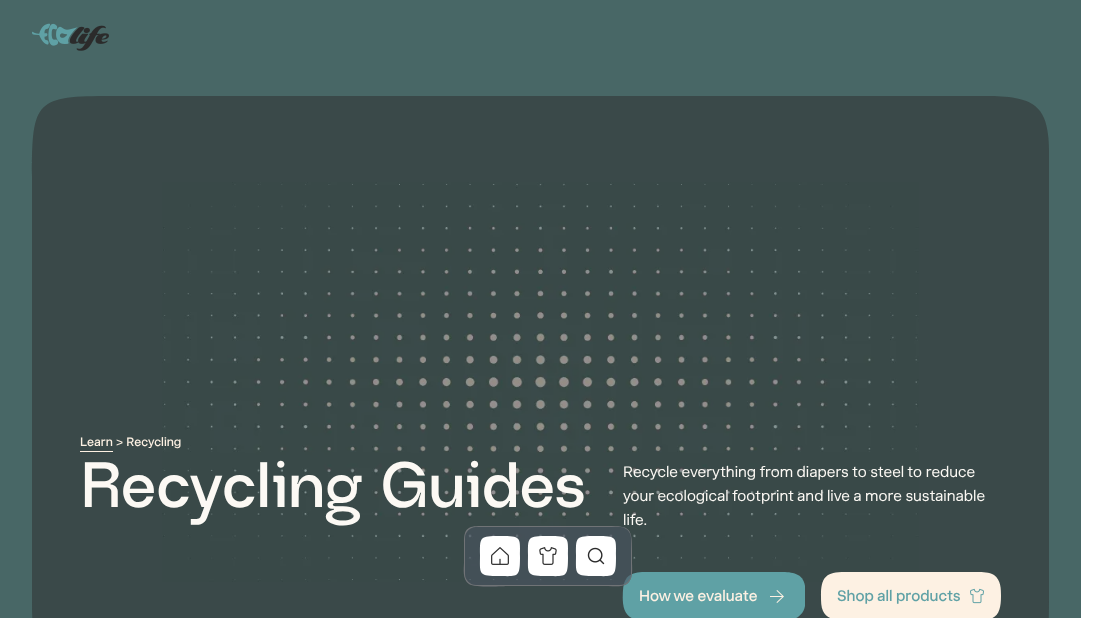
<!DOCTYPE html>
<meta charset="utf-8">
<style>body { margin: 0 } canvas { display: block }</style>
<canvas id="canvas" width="1096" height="618"></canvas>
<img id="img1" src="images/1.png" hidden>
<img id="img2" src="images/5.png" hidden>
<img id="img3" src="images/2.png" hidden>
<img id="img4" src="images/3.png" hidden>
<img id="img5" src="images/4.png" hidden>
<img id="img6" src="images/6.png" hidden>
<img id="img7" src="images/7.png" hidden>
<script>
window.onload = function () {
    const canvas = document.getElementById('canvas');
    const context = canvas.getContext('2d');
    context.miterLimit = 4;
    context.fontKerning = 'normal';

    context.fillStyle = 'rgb(255, 255, 255)';
    context.fillRect(0, 0, 1096, 618);
    context.fillStyle = 'rgb(72, 103, 102)';
    context.fillRect(0, 0, 1081, 618);
    context.drawImage(document.getElementById('img1'), 32, 23, 77, 28);
    context.drawImage(document.getElementById('img2'), 162, 182, 757, 400);
    context.fillStyle = 'rgba(43, 43, 43, 0.5)';
    context.beginPath();
    context.moveTo(969, 96);
    context.lineTo(112, 96);
    context.bezierCurveTo(36, 96, 32, 100, 32, 176);
    context.lineTo(32, 601);
    context.bezierCurveTo(32, 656, 39, 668, 94, 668);
    context.lineTo(987, 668);
    context.bezierCurveTo(1051, 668, 1049, 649, 1049, 588);
    context.lineTo(1049, 151);
    context.bezierCurveTo(1049, 140, 1048, 128, 1044, 118);
    context.bezierCurveTo(1036, 98, 1013, 97, 994, 96);
    context.closePath();
    context.fill();
    context.fillStyle = 'rgb(95, 161, 165)';
    context.beginPath();
    context.moveTo(781, 572);
    context.bezierCurveTo(792, 572, 803, 573, 805, 586);
    context.lineTo(805, 606);
    context.bezierCurveTo(803, 616, 795, 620, 787, 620);
    context.lineTo(642, 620);
    context.bezierCurveTo(623, 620, 622, 606, 623, 590);
    context.bezierCurveTo(624, 574, 633, 572, 647, 572);
    context.closePath();
    context.fill();
    context.fillStyle = 'rgba(75, 85, 99, 0.6)';
    context.beginPath();
    context.moveTo(608, 526);
    context.lineTo(481, 526);
    context.bezierCurveTo(467, 526, 464, 529, 464, 543);
    context.lineTo(464, 562);
    context.bezierCurveTo(464, 569, 462, 579, 469, 584);
    context.bezierCurveTo(475, 588, 505, 586, 508, 586);
    context.lineTo(608, 586);
    context.bezierCurveTo(614, 586, 620, 587, 625, 585);
    context.bezierCurveTo(634, 581, 632, 569, 632, 562);
    context.lineTo(632, 550);
    context.bezierCurveTo(632, 528, 630, 526, 608, 526);
    context.closePath();
    context.fill();
    context.fillStyle = 'rgb(112, 115, 118)';
    context.beginPath();
    context.moveTo(608, 526);
    context.lineTo(481, 526);
    context.bezierCurveTo(467, 526, 464, 529, 464, 543);
    context.lineTo(464, 562);
    context.bezierCurveTo(464, 569, 462, 579, 469, 584);
    context.bezierCurveTo(475, 588, 505, 586, 508, 586);
    context.lineTo(608, 586);
    context.bezierCurveTo(614, 586, 620, 587, 625, 585);
    context.bezierCurveTo(634, 581, 632, 569, 632, 562);
    context.lineTo(632, 550);
    context.bezierCurveTo(632, 528, 630, 526, 608, 526);
    context.closePath();
    context.moveTo(476, 527);
    context.bezierCurveTo(470, 527, 465, 532, 465, 538);
    context.lineTo(465, 574);
    context.bezierCurveTo(465, 580, 470, 585, 476, 585);
    context.lineTo(620, 585);
    context.bezierCurveTo(626, 585, 631, 580, 631, 574);
    context.lineTo(631, 538);
    context.bezierCurveTo(631, 532, 626, 527, 620, 527);
    context.closePath();
    context.fill('evenodd');
    context.fillStyle = 'rgb(255, 255, 255)';
    context.beginPath();
    context.moveTo(504, 536);
    context.bezierCurveTo(522, 536, 520, 539, 520, 557);
    context.bezierCurveTo(520, 579, 518, 576, 496, 576);
    context.bezierCurveTo(478, 576, 480, 573, 480, 555);
    context.bezierCurveTo(480, 539, 479, 536, 496, 536);
    context.closePath();
    context.fill();
    context.drawImage(document.getElementById('img3'), 491, 547, 18, 18);
    context.beginPath();
    context.moveTo(552, 536);
    context.bezierCurveTo(570, 536, 568, 539, 568, 557);
    context.bezierCurveTo(568, 579, 566, 576, 544, 576);
    context.bezierCurveTo(526, 576, 528, 573, 528, 555);
    context.bezierCurveTo(528, 539, 527, 536, 544, 536);
    context.closePath();
    context.fill();
    context.drawImage(document.getElementById('img4'), 539, 547, 18, 18);
    context.beginPath();
    context.moveTo(600, 536);
    context.bezierCurveTo(618, 536, 616, 539, 616, 557);
    context.bezierCurveTo(616, 579, 614, 576, 592, 576);
    context.bezierCurveTo(574, 576, 576, 573, 576, 555);
    context.bezierCurveTo(576, 539, 575, 536, 592, 536);
    context.closePath();
    context.fill();
    context.drawImage(document.getElementById('img5'), 587, 547, 18, 18);
    context.fillStyle = 'rgb(253, 241, 227)';
    context.fillRect(80, 451, 33, 1);
    context.drawImage(document.getElementById('img6'), 770, 590, 14, 13);
    context.beginPath();
    context.moveTo(977, 572);
    context.bezierCurveTo(983, 572, 989, 572, 994, 575);
    context.bezierCurveTo(1001, 580, 1001, 589, 1001, 596);
    context.bezierCurveTo(1001, 611, 998, 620, 982, 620);
    context.lineTo(840, 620);
    context.bezierCurveTo(834, 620, 826, 618, 823, 611);
    context.bezierCurveTo(821, 607, 821, 601, 821, 596);
    context.bezierCurveTo(821, 577, 826, 572, 845, 572);
    context.closePath();
    context.fill();
    context.drawImage(document.getElementById('img7'), 970, 588, 14, 16);
    context.font = '500 12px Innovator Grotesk';
    context.fillText('Learn', 80, 446);
    context.fillText('> Recycling', 116, 446);
    context.letterSpacing = '0.25px';
    context.font = '600 64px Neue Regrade';
    context.fillStyle = 'rgb(252, 249, 244)';
    context.fillText('Recycling Guides', 80, 507);
    context.letterSpacing = '0px';
    context.font = '15px Innovator Grotesk';
    context.fillText('Recycle everything from diapers to steel to reduce', 623, 477);
    context.fillText('your ecological footprint and live a more sustainable', 623, 501);
    context.fillText('life.', 623, 525);
    context.font = '500 15px Innovator Grotesk';
    context.fillStyle = 'rgb(253, 241, 227)';
    context.fillText('How we evaluate', 639, 601);
    context.fillStyle = 'rgb(95, 161, 165)';
    context.fillText('Shop all products', 837, 601);
};
</script>
